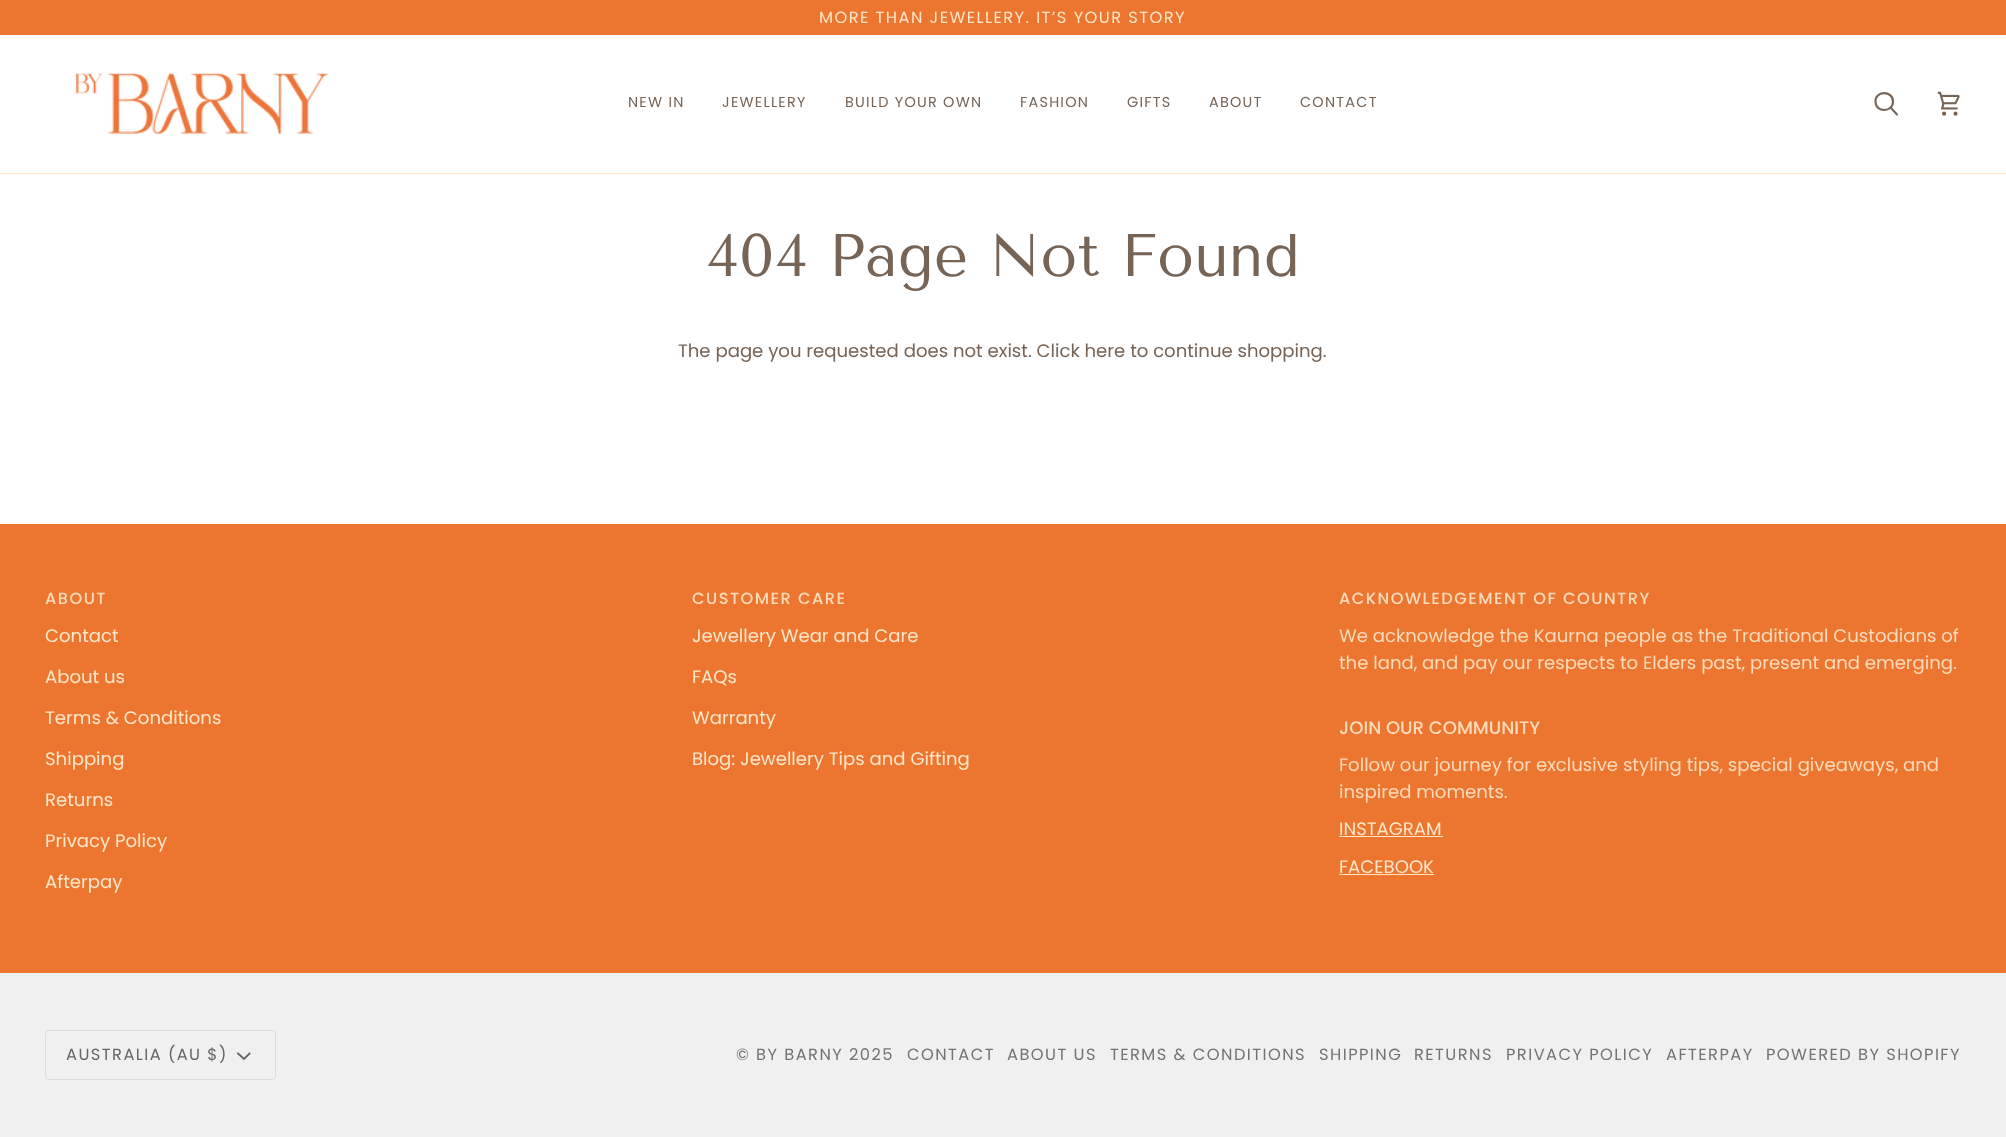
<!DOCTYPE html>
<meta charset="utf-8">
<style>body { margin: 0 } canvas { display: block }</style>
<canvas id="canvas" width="2006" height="1137"></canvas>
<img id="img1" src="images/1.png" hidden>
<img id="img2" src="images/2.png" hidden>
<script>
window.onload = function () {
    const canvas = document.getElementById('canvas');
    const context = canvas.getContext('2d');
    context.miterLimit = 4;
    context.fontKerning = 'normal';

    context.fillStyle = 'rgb(255, 255, 255)';
    context.fillRect(0, 0, 2006, 1137);
    context.fillStyle = 'rgb(236, 118, 48)';
    context.fillRect(0, 0, 2006, 35);
    context.fillStyle = 'rgb(255, 230, 201)';
    context.fillRect(0, 173, 2006, 1);
    context.drawImage(document.getElementById('img1'), 74, 73, 255, 61);
    context.beginPath();
    context.moveTo(1893, 101.5);
    context.bezierCurveTo(1893, 112.5, 1876, 113, 1875.5, 102);
    context.bezierCurveTo(1874.5, 90.5, 1893, 90, 1893, 101.5);
    context.closePath();
    context.moveTo(1897, 114.5);
    context.lineTo(1890.5, 107.5);
    context.closePath();
    context.strokeStyle = 'rgb(118, 100, 86)';
    context.lineWidth = 2.1;
    context.lineCap = 'round';
    context.lineJoin = 'round';
    context.stroke();
    context.drawImage(document.getElementById('img2'), 1937, 91, 23, 25);
    context.fillStyle = 'rgb(236, 118, 48)';
    context.fillRect(0, 524, 2006, 449);
    context.fillStyle = 'rgb(255, 230, 201)';
    context.fillRect(1339, 836, 104, 1);
    context.fillRect(1339, 874, 95, 1);
    context.fillStyle = 'rgb(240, 240, 240)';
    context.fillRect(0, 973, 2006, 164);
    context.beginPath();
    context.roundRect(45.5, 1030.5, 230, 49, 3.5);
    context.strokeStyle = 'rgb(219, 219, 219)';
    context.lineWidth = 1;
    context.lineJoin = 'miter';
    context.stroke();
    context.beginPath();
    context.moveTo(238, 1053.5);
    context.lineTo(244, 1059);
    context.lineTo(249.5, 1053.5);
    context.strokeStyle = 'rgb(101, 101, 101)';
    context.lineWidth = 1.9;
    context.lineCap = 'square';
    context.stroke();
    context.letterSpacing = '1.45px';
    context.font = '16.25px Poppins';
    context.fillStyle = 'rgb(255, 230, 201)';
    context.fillText('MORE THAN JEWELLERY. IT’S YOUR STORY', 819, 23);
    context.letterSpacing = '1.25px';
    context.font = '14.4px Poppins';
    context.fillStyle = 'rgb(118, 100, 86)';
    context.fillText('NEW IN', 628, 107);
    context.fillText('JEWELLERY', 722, 107);
    context.fillText('BUILD YOUR OWN', 845, 107);
    context.fillText('FASHION', 1020, 107);
    context.fillText('GIFTS', 1127, 107);
    context.fillText('ABOUT', 1209, 107);
    context.fillText('CONTACT', 1300, 107);
    context.letterSpacing = '0px';
    context.font = '60px Tenor Sans';
    context.fillText('404 Page Not Found', 706, 276);
    context.font = '18.1px Poppins';
    context.fillText('The page you requested does not exist. Click here to continue shopping.', 678, 357);
    context.letterSpacing = '1.45px';
    context.font = '500 16.25px Poppins';
    context.fillStyle = 'rgb(253, 219, 186)';
    context.fillText('ABOUT', 45, 604);
    context.letterSpacing = '0px';
    context.font = '18.1px Poppins';
    context.fillStyle = 'rgb(255, 230, 201)';
    context.fillText('Contact', 45, 642);
    context.fillText('About us', 45, 683);
    context.fillText('Terms & Conditions', 45, 724);
    context.fillText('Shipping', 45, 765);
    context.fillText('Returns', 45, 806);
    context.fillText('Privacy Policy', 45, 847);
    context.fillText('Afterpay', 45, 888);
    context.letterSpacing = '1.45px';
    context.font = '500 16.25px Poppins';
    context.fillStyle = 'rgb(253, 219, 186)';
    context.fillText('CUSTOMER CARE', 692, 604);
    context.letterSpacing = '0px';
    context.font = '18.1px Poppins';
    context.fillStyle = 'rgb(255, 230, 201)';
    context.fillText('Jewellery Wear and Care', 692, 642);
    context.fillText('FAQs', 692, 683);
    context.fillText('Warranty', 692, 724);
    context.fillText('Blog: Jewellery Tips and Gifting', 692, 765);
    context.letterSpacing = '1.45px';
    context.font = '500 16.25px Poppins';
    context.fillStyle = 'rgb(253, 219, 186)';
    context.fillText('ACKNOWLEDGEMENT OF COUNTRY', 1339, 604);
    context.letterSpacing = '0px';
    context.font = '18.1px Poppins';
    context.fillText('We acknowledge the Kaurna people as the Traditional Custodians of', 1339, 642);
    context.fillText('the land, and pay our respects to Elders past, present and emerging.', 1339, 669);
    context.font = '500 18.1px Poppins';
    context.fillText('JOIN OUR COMMUNITY', 1339, 734);
    context.font = '18.1px Poppins';
    context.fillText('Follow our journey for exclusive styling tips, special giveaways, and', 1339, 771);
    context.fillText('inspired moments.', 1339, 798);
    context.fillStyle = 'rgb(255, 230, 201)';
    context.fillText('INSTAGRAM', 1339, 835);
    context.fillText('FACEBOOK', 1339, 873);
    context.letterSpacing = '1.45px';
    context.font = '16.25px Poppins';
    context.fillStyle = 'rgb(101, 101, 101)';
    context.fillText('AUSTRALIA (AU $)', 66, 1060);
    context.fillStyle = 'rgb(115, 115, 115)';
    context.fillText('© BY BARNY', 736, 1060);
    context.fillText('2025', 849, 1060);
    context.fillText('CONTACT', 907, 1060);
    context.fillText('ABOUT US', 1007, 1060);
    context.fillText('TERMS & CONDITIONS', 1110, 1060);
    context.fillText('SHIPPING', 1319, 1060);
    context.fillText('RETURNS', 1414, 1060);
    context.fillText('PRIVACY POLICY', 1506, 1060);
    context.fillText('AFTERPAY', 1666, 1060);
    context.fillText('POWERED BY SHOPIFY', 1766, 1060);
};
</script>
